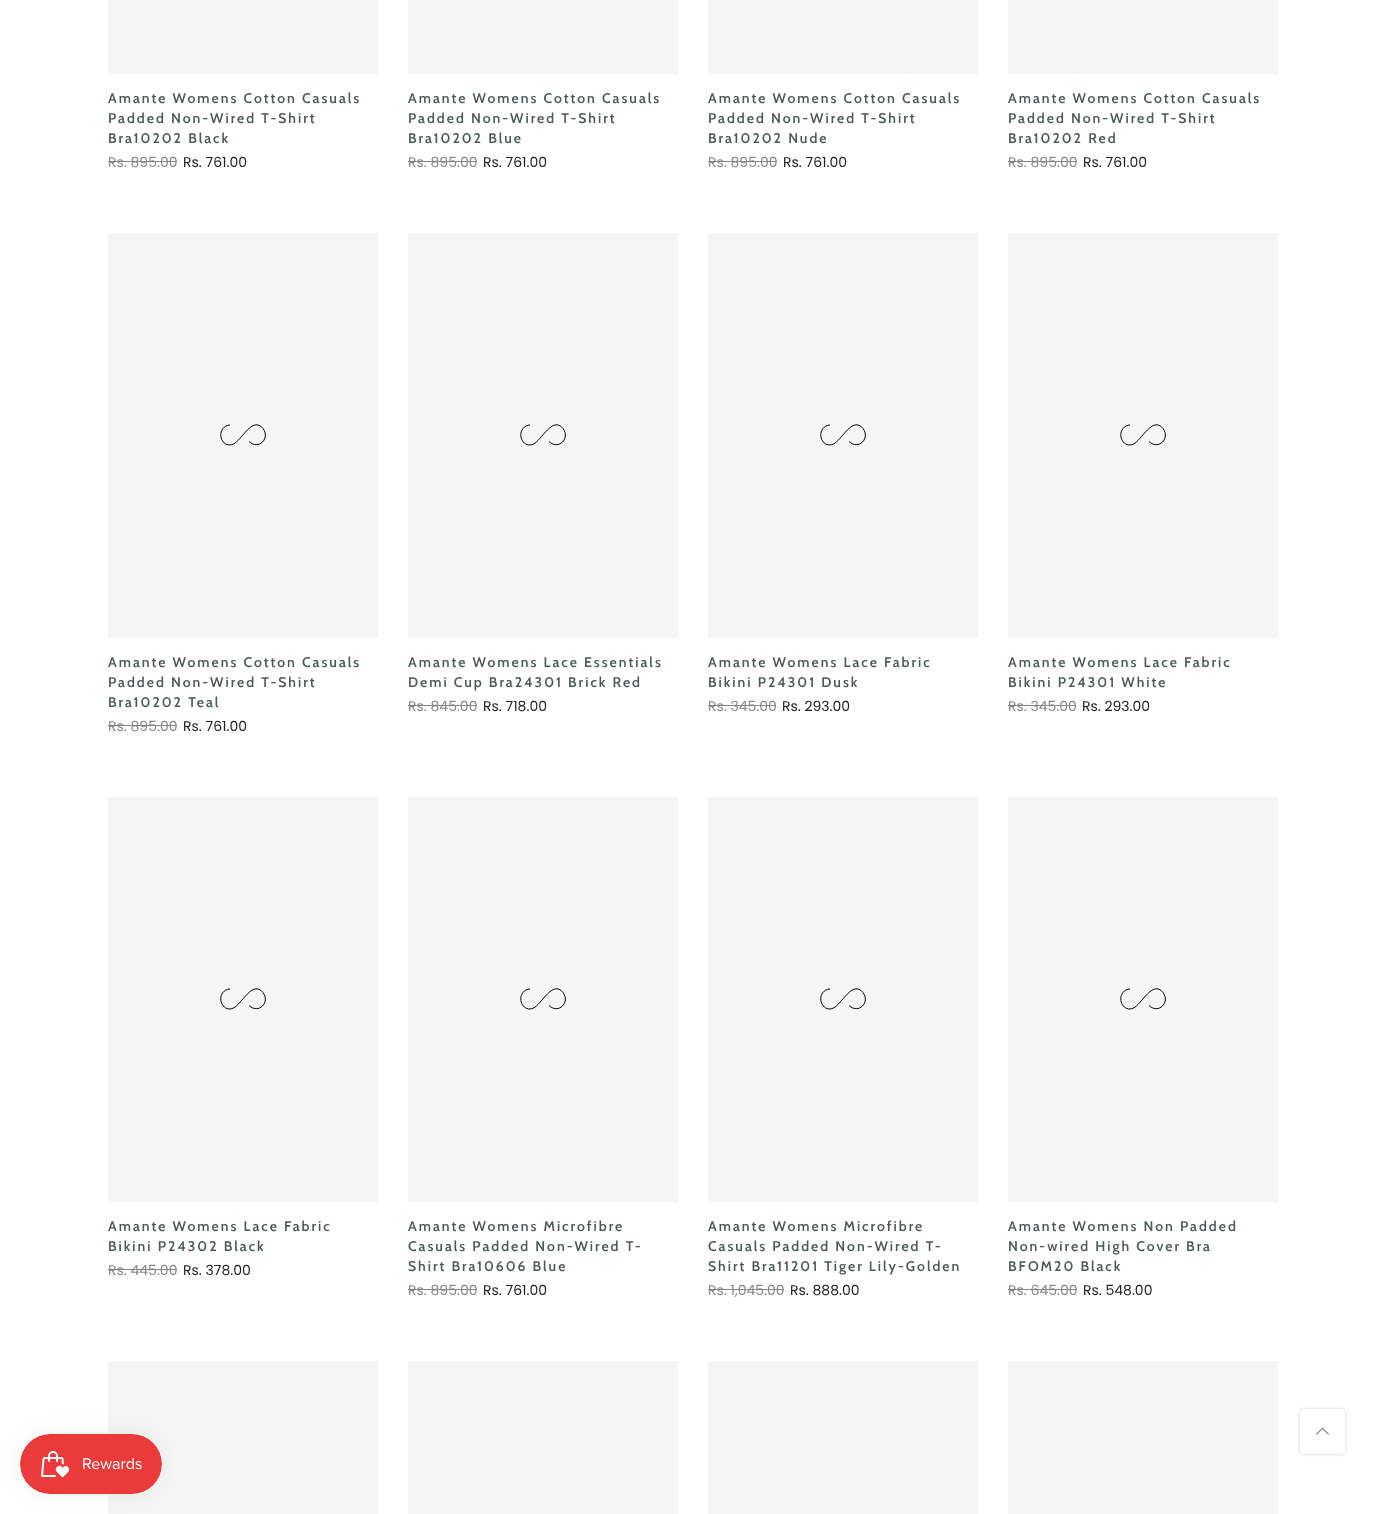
<!DOCTYPE html>
<meta charset="utf-8">
<style>body { margin: 0 } canvas { display: block }</style>
<canvas id="canvas" width="1385" height="1514"></canvas>
<img id="img1" src="images/1.png" hidden>
<img id="img2" src="images/2.png" hidden>
<script>
window.onload = function () {
    const canvas = document.getElementById('canvas');
    const context = canvas.getContext('2d');
    context.miterLimit = 4;
    context.fontKerning = 'normal';

    context.fillStyle = 'rgb(255, 255, 255)';
    context.fillRect(0, 0, 1385, 1514);
    context.fillStyle = 'rgb(245, 245, 245)';
    context.fillRect(108, 0, 270, 74);
    context.fillStyle = 'rgb(135, 135, 135)';
    context.fillRect(108, 161, 69, 1);
    context.fillStyle = 'rgb(245, 245, 245)';
    context.fillRect(408, 0, 270, 74);
    context.fillStyle = 'rgb(135, 135, 135)';
    context.fillRect(408, 161, 69, 1);
    context.fillStyle = 'rgb(245, 245, 245)';
    context.fillRect(708, 0, 270, 74);
    context.fillStyle = 'rgb(135, 135, 135)';
    context.fillRect(708, 161, 69, 1);
    context.fillStyle = 'rgb(245, 245, 245)';
    context.fillRect(1008, 0, 270, 74);
    context.fillStyle = 'rgb(135, 135, 135)';
    context.fillRect(1008, 161, 69, 1);
    context.fillStyle = 'rgb(245, 245, 245)';
    context.fillRect(108, 233, 270, 405);
    context.beginPath();
    context.moveTo(230, 425);
    context.bezierCurveTo(227, 425, 224.5, 426.5, 223, 428.5);
    context.bezierCurveTo(217, 436, 224, 448.5, 233.5, 444);
    context.bezierCurveTo(241.5, 440.5, 252.5, 415.5, 263, 428.5);
    context.bezierCurveTo(270.5, 438.5, 258.5, 450.5, 249, 441.5);
    context.strokeStyle = 'rgb(0, 0, 0)';
    context.stroke();
    context.fillStyle = 'rgb(135, 135, 135)';
    context.fillRect(108, 725, 69, 1);
    context.fillStyle = 'rgb(245, 245, 245)';
    context.fillRect(408, 233, 270, 405);
    context.beginPath();
    context.moveTo(530, 425);
    context.bezierCurveTo(527, 425, 524.5, 426.5, 523, 428.5);
    context.bezierCurveTo(517, 436, 524, 448.5, 533.5, 444);
    context.bezierCurveTo(541.5, 440.5, 552.5, 415.5, 563, 428.5);
    context.bezierCurveTo(570.5, 438.5, 558.5, 450.5, 549, 441.5);
    context.stroke();
    context.fillStyle = 'rgb(135, 135, 135)';
    context.fillRect(408, 705, 69, 1);
    context.fillStyle = 'rgb(245, 245, 245)';
    context.fillRect(708, 233, 270, 405);
    context.beginPath();
    context.moveTo(830, 425);
    context.bezierCurveTo(827, 425, 824.5, 426.5, 823, 428.5);
    context.bezierCurveTo(817, 436, 824, 448.5, 833.5, 444);
    context.bezierCurveTo(841.5, 440.5, 852.5, 415.5, 863, 428.5);
    context.bezierCurveTo(870.5, 438.5, 858.5, 450.5, 849, 441.5);
    context.stroke();
    context.fillStyle = 'rgb(135, 135, 135)';
    context.fillRect(708, 705, 68, 1);
    context.fillStyle = 'rgb(245, 245, 245)';
    context.fillRect(1008, 233, 270, 405);
    context.beginPath();
    context.moveTo(1130, 425);
    context.bezierCurveTo(1127, 425, 1124.5, 426.5, 1123, 428.5);
    context.bezierCurveTo(1117, 436, 1124, 448.5, 1133.5, 444);
    context.bezierCurveTo(1141.5, 440.5, 1152.5, 415.5, 1163, 428.5);
    context.bezierCurveTo(1170.5, 438.5, 1158.5, 450.5, 1149, 441.5);
    context.stroke();
    context.fillStyle = 'rgb(135, 135, 135)';
    context.fillRect(1008, 705, 68, 1);
    context.fillStyle = 'rgb(245, 245, 245)';
    context.fillRect(108, 797, 270, 405);
    context.beginPath();
    context.moveTo(230, 989);
    context.bezierCurveTo(227, 989, 224.5, 990.5, 223, 992.5);
    context.bezierCurveTo(217, 1000, 224, 1012.5, 233.5, 1008);
    context.bezierCurveTo(241.5, 1004.5, 252.5, 979.5, 263, 992.5);
    context.bezierCurveTo(270.5, 1002.5, 258.5, 1014.5, 249, 1005.5);
    context.stroke();
    context.fillStyle = 'rgb(135, 135, 135)';
    context.fillRect(108, 1269, 69, 1);
    context.fillStyle = 'rgb(245, 245, 245)';
    context.fillRect(408, 797, 270, 405);
    context.beginPath();
    context.moveTo(530, 989);
    context.bezierCurveTo(527, 989, 524.5, 990.5, 523, 992.5);
    context.bezierCurveTo(517, 1000, 524, 1012.5, 533.5, 1008);
    context.bezierCurveTo(541.5, 1004.5, 552.5, 979.5, 563, 992.5);
    context.bezierCurveTo(570.5, 1002.5, 558.5, 1014.5, 549, 1005.5);
    context.stroke();
    context.fillStyle = 'rgb(135, 135, 135)';
    context.fillRect(408, 1289, 69, 1);
    context.fillStyle = 'rgb(245, 245, 245)';
    context.fillRect(708, 797, 270, 405);
    context.beginPath();
    context.moveTo(830, 989);
    context.bezierCurveTo(827, 989, 824.5, 990.5, 823, 992.5);
    context.bezierCurveTo(817, 1000, 824, 1012.5, 833.5, 1008);
    context.bezierCurveTo(841.5, 1004.5, 852.5, 979.5, 863, 992.5);
    context.bezierCurveTo(870.5, 1002.5, 858.5, 1014.5, 849, 1005.5);
    context.stroke();
    context.fillStyle = 'rgb(135, 135, 135)';
    context.fillRect(708, 1289, 76, 1);
    context.fillStyle = 'rgb(245, 245, 245)';
    context.fillRect(1008, 797, 270, 405);
    context.beginPath();
    context.moveTo(1130, 989);
    context.bezierCurveTo(1127, 989, 1124.5, 990.5, 1123, 992.5);
    context.bezierCurveTo(1117, 1000, 1124, 1012.5, 1133.5, 1008);
    context.bezierCurveTo(1141.5, 1004.5, 1152.5, 979.5, 1163, 992.5);
    context.bezierCurveTo(1170.5, 1002.5, 1158.5, 1014.5, 1149, 1005.5);
    context.stroke();
    context.fillStyle = 'rgb(135, 135, 135)';
    context.fillRect(1008, 1289, 69, 1);
    context.fillStyle = 'rgb(245, 245, 245)';
    context.fillRect(108, 1361, 270, 153);
    context.fillRect(408, 1361, 270, 153);
    context.fillRect(708, 1361, 270, 153);
    context.fillRect(1008, 1361, 270, 153);
    context.fillStyle = 'rgba(0, 0, 0, 0.05)';
    context.filter = 'blur(12.5px)';
    context.beginPath();
    context.roundRect(20, 1434, 142, 60, 30);
    context.fill();
    context.filter = 'none';
    context.drawImage(document.getElementById('img1'), 20, 1434, 142, 60);
    context.fillStyle = 'rgba(0, 0, 0, 0.2)';
    context.filter = 'blur(1.5px)';
    context.beginPath();
    context.roundRect(1300, 1409, 45, 45, 3);
    context.fill();
    context.filter = 'none';
    context.fillStyle = 'rgb(255, 255, 255)';
    context.beginPath();
    context.roundRect(1300, 1409, 45, 45, 3);
    context.fill();
    context.drawImage(document.getElementById('img2'), 1316, 1427, 13, 8);
    context.letterSpacing = '2px';
    context.font = '600 14px Cabin';
    context.fillStyle = 'rgb(77, 89, 89)';
    context.fillText('Amante Womens Cotton Casuals', 108, 103);
    context.fillText('Padded Non-Wired T-Shirt', 108, 123);
    context.fillText('Bra10202 Black', 108, 143);
    context.letterSpacing = '0px';
    context.font = '14px Poppins';
    context.fillStyle = 'rgb(135, 135, 135)';
    context.fillText('Rs. 895.00', 108, 167);
    context.fillStyle = 'rgb(34, 34, 34)';
    context.fillText('Rs. 761.00', 183, 167);
    context.letterSpacing = '2px';
    context.font = '600 14px Cabin';
    context.fillStyle = 'rgb(77, 89, 89)';
    context.fillText('Amante Womens Cotton Casuals', 408, 103);
    context.fillText('Padded Non-Wired T-Shirt', 408, 123);
    context.fillText('Bra10202 Blue', 408, 143);
    context.letterSpacing = '0px';
    context.font = '14px Poppins';
    context.fillStyle = 'rgb(135, 135, 135)';
    context.fillText('Rs. 895.00', 408, 167);
    context.fillStyle = 'rgb(34, 34, 34)';
    context.fillText('Rs. 761.00', 483, 167);
    context.letterSpacing = '2px';
    context.font = '600 14px Cabin';
    context.fillStyle = 'rgb(77, 89, 89)';
    context.fillText('Amante Womens Cotton Casuals', 708, 103);
    context.fillText('Padded Non-Wired T-Shirt', 708, 123);
    context.fillText('Bra10202 Nude', 708, 143);
    context.letterSpacing = '0px';
    context.font = '14px Poppins';
    context.fillStyle = 'rgb(135, 135, 135)';
    context.fillText('Rs. 895.00', 708, 167);
    context.fillStyle = 'rgb(34, 34, 34)';
    context.fillText('Rs. 761.00', 783, 167);
    context.letterSpacing = '2px';
    context.font = '600 14px Cabin';
    context.fillStyle = 'rgb(77, 89, 89)';
    context.fillText('Amante Womens Cotton Casuals', 1008, 103);
    context.fillText('Padded Non-Wired T-Shirt', 1008, 123);
    context.fillText('Bra10202 Red', 1008, 143);
    context.letterSpacing = '0px';
    context.font = '14px Poppins';
    context.fillStyle = 'rgb(135, 135, 135)';
    context.fillText('Rs. 895.00', 1008, 167);
    context.fillStyle = 'rgb(34, 34, 34)';
    context.fillText('Rs. 761.00', 1083, 167);
    context.letterSpacing = '2px';
    context.font = '600 14px Cabin';
    context.fillStyle = 'rgb(77, 89, 89)';
    context.fillText('Amante Womens Cotton Casuals', 108, 667);
    context.fillText('Padded Non-Wired T-Shirt', 108, 687);
    context.fillText('Bra10202 Teal', 108, 707);
    context.letterSpacing = '0px';
    context.font = '14px Poppins';
    context.fillStyle = 'rgb(135, 135, 135)';
    context.fillText('Rs. 895.00', 108, 731);
    context.fillStyle = 'rgb(34, 34, 34)';
    context.fillText('Rs. 761.00', 183, 731);
    context.letterSpacing = '2px';
    context.font = '600 14px Cabin';
    context.fillStyle = 'rgb(77, 89, 89)';
    context.fillText('Amante Womens Lace Essentials', 408, 667);
    context.fillText('Demi Cup Bra24301 Brick Red', 408, 687);
    context.letterSpacing = '0px';
    context.font = '14px Poppins';
    context.fillStyle = 'rgb(135, 135, 135)';
    context.fillText('Rs. 845.00', 408, 711);
    context.fillStyle = 'rgb(34, 34, 34)';
    context.fillText('Rs. 718.00', 483, 711);
    context.letterSpacing = '2px';
    context.font = '600 14px Cabin';
    context.fillStyle = 'rgb(77, 89, 89)';
    context.fillText('Amante Womens Lace Fabric', 708, 667);
    context.fillText('Bikini P24301 Dusk', 708, 687);
    context.letterSpacing = '0px';
    context.font = '14px Poppins';
    context.fillStyle = 'rgb(135, 135, 135)';
    context.fillText('Rs. 345.00', 708, 711);
    context.fillStyle = 'rgb(34, 34, 34)';
    context.fillText('Rs. 293.00', 782, 711);
    context.letterSpacing = '2px';
    context.font = '600 14px Cabin';
    context.fillStyle = 'rgb(77, 89, 89)';
    context.fillText('Amante Womens Lace Fabric', 1008, 667);
    context.fillText('Bikini P24301 White', 1008, 687);
    context.letterSpacing = '0px';
    context.font = '14px Poppins';
    context.fillStyle = 'rgb(135, 135, 135)';
    context.fillText('Rs. 345.00', 1008, 711);
    context.fillStyle = 'rgb(34, 34, 34)';
    context.fillText('Rs. 293.00', 1082, 711);
    context.letterSpacing = '2px';
    context.font = '600 14px Cabin';
    context.fillStyle = 'rgb(77, 89, 89)';
    context.fillText('Amante Womens Lace Fabric', 108, 1231);
    context.fillText('Bikini P24302 Black', 108, 1251);
    context.letterSpacing = '0px';
    context.font = '14px Poppins';
    context.fillStyle = 'rgb(135, 135, 135)';
    context.fillText('Rs. 445.00', 108, 1275);
    context.fillStyle = 'rgb(34, 34, 34)';
    context.fillText('Rs. 378.00', 183, 1275);
    context.letterSpacing = '2px';
    context.font = '600 14px Cabin';
    context.fillStyle = 'rgb(77, 89, 89)';
    context.fillText('Amante Womens Microfibre', 408, 1231);
    context.fillText('Casuals Padded Non-Wired T-', 408, 1251);
    context.fillText('Shirt Bra10606 Blue', 408, 1271);
    context.letterSpacing = '0px';
    context.font = '14px Poppins';
    context.fillStyle = 'rgb(135, 135, 135)';
    context.fillText('Rs. 895.00', 408, 1295);
    context.fillStyle = 'rgb(34, 34, 34)';
    context.fillText('Rs. 761.00', 483, 1295);
    context.letterSpacing = '2px';
    context.font = '600 14px Cabin';
    context.fillStyle = 'rgb(77, 89, 89)';
    context.fillText('Amante Womens Microfibre', 708, 1231);
    context.fillText('Casuals Padded Non-Wired T-', 708, 1251);
    context.fillText('Shirt Bra11201 Tiger Lily-Golden', 708, 1271);
    context.letterSpacing = '0px';
    context.font = '14px Poppins';
    context.fillStyle = 'rgb(135, 135, 135)';
    context.fillText('Rs. 1,045.00', 708, 1295);
    context.fillStyle = 'rgb(34, 34, 34)';
    context.fillText('Rs. 888.00', 790, 1295);
    context.letterSpacing = '2px';
    context.font = '600 14px Cabin';
    context.fillStyle = 'rgb(77, 89, 89)';
    context.fillText('Amante Womens Non Padded', 1008, 1231);
    context.fillText('Non-wired High Cover Bra', 1008, 1251);
    context.fillText('BFOM20 Black', 1008, 1271);
    context.letterSpacing = '0px';
    context.font = '14px Poppins';
    context.fillStyle = 'rgb(135, 135, 135)';
    context.fillText('Rs. 645.00', 1008, 1295);
    context.fillStyle = 'rgb(34, 34, 34)';
    context.fillText('Rs. 548.00', 1083, 1295);
};
</script>
